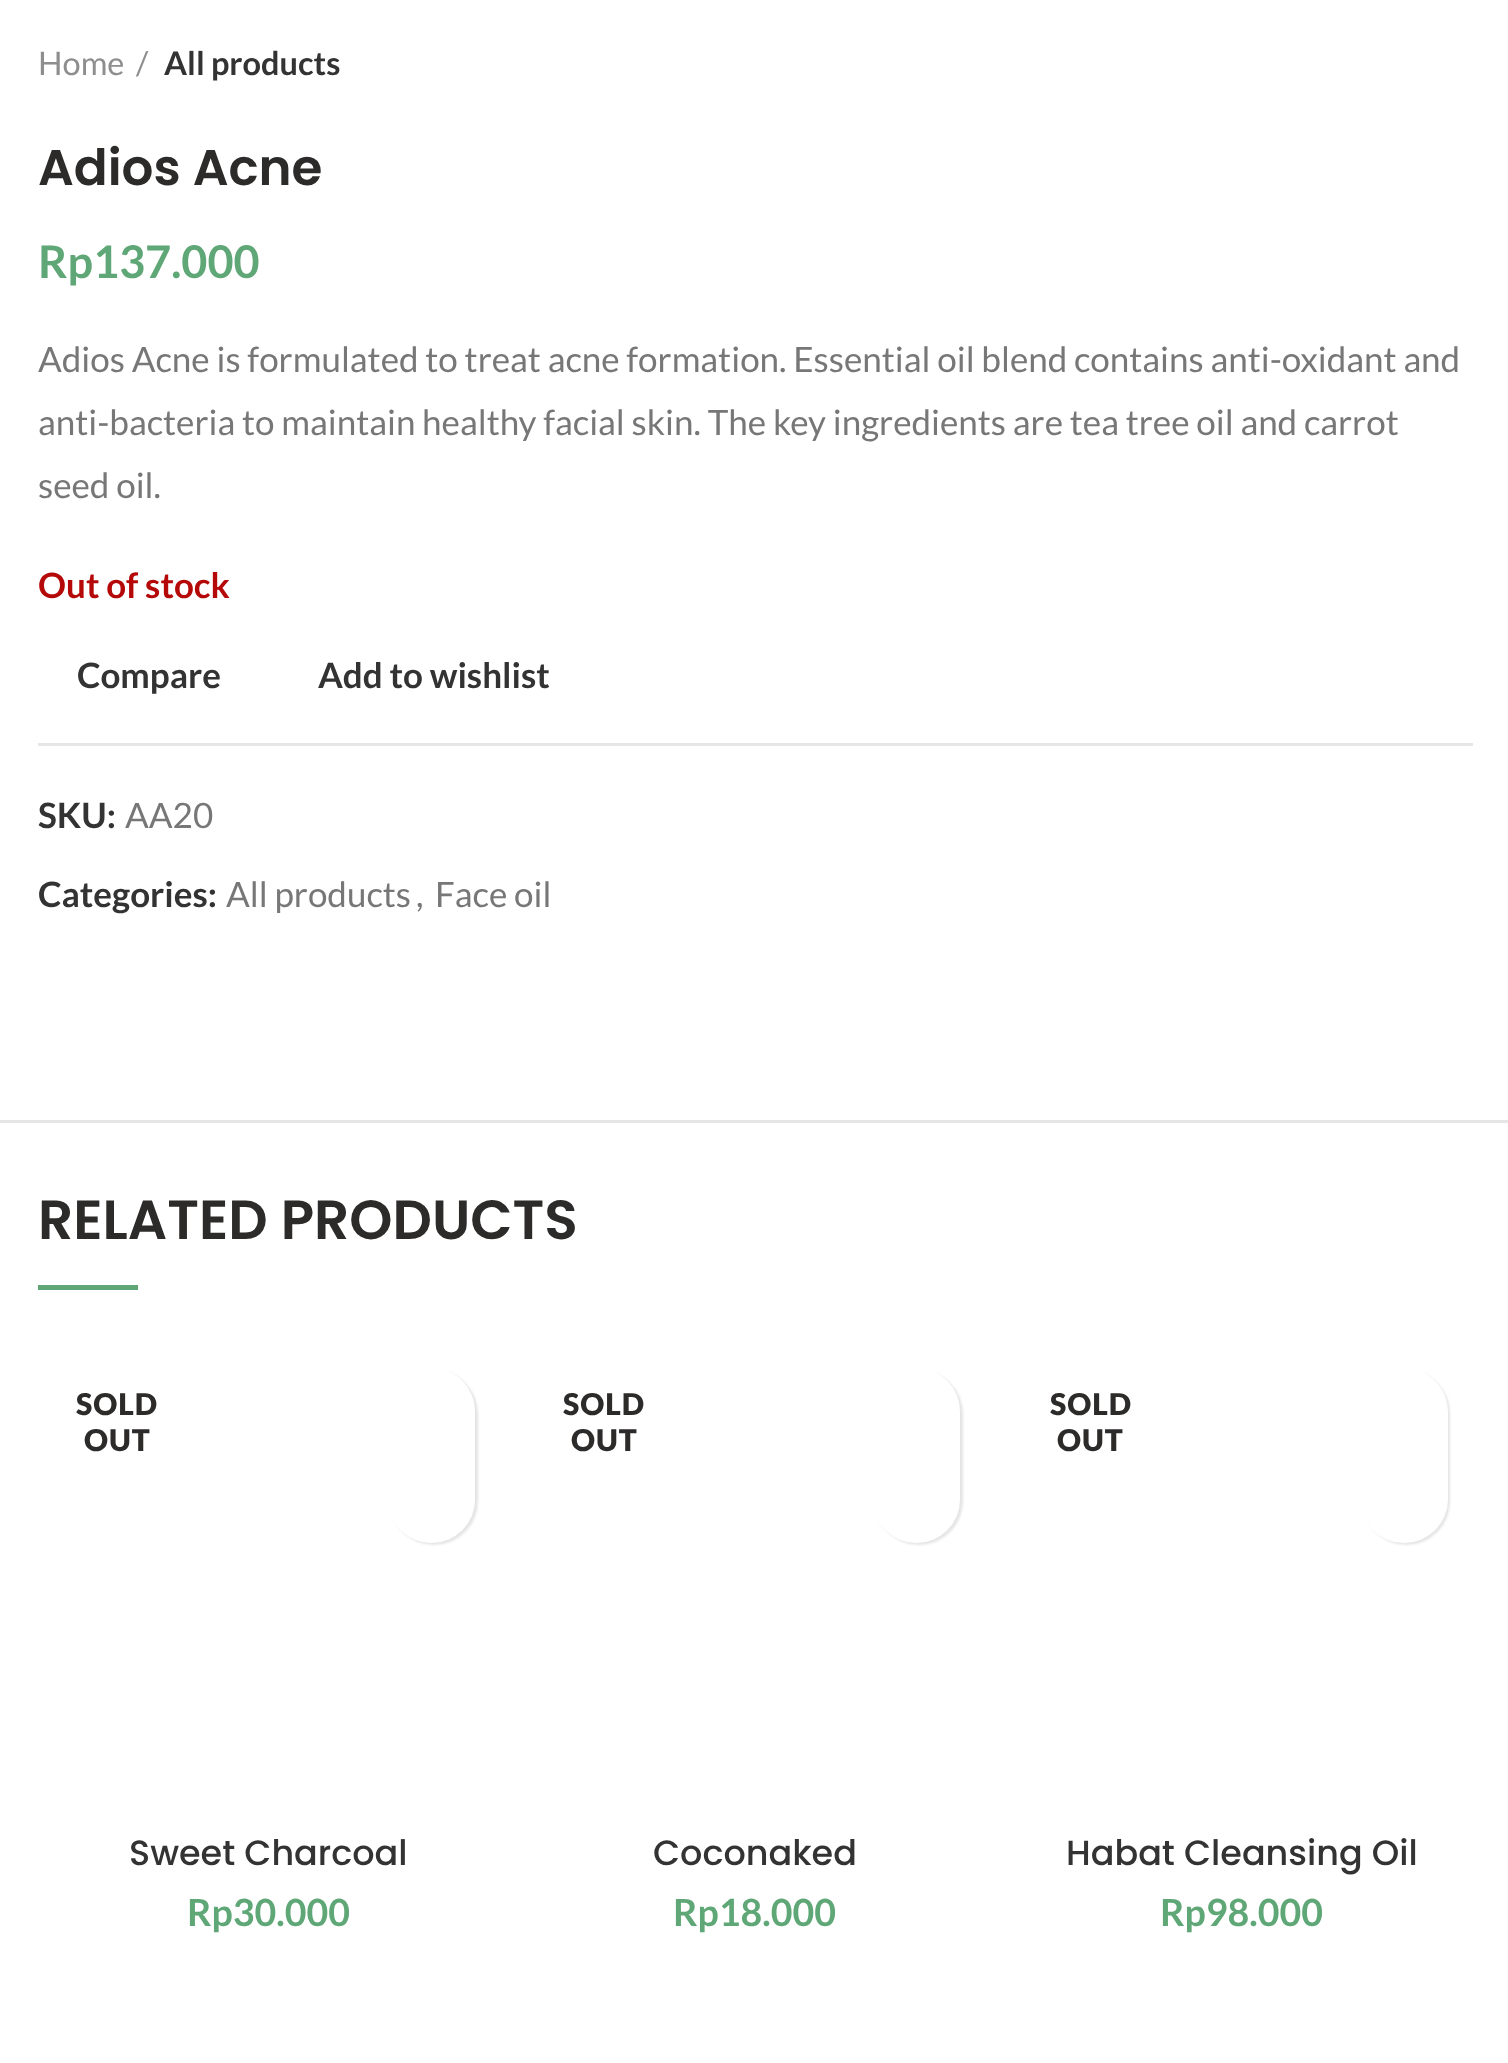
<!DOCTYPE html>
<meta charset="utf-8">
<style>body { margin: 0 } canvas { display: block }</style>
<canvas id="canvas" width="1508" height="2063"></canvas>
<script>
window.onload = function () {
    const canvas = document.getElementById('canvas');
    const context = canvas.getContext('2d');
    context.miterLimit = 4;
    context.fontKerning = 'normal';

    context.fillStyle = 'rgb(255, 255, 255)';
    context.fillRect(0, 0, 1508, 2063);
    context.fillStyle = 'rgb(230, 230, 230)';
    context.fillRect(38, 743, 1435, 3);
    context.fillRect(0, 1120, 1508, 3);
    context.fillStyle = 'rgb(95, 167, 118)';
    context.fillRect(38, 1285, 100, 5);
    context.fillStyle = 'rgba(0, 0, 0, 0.1)';
    context.filter = 'blur(1px)';
    context.beginPath();
    context.roundRect(390, 1370, 88, 175, 44);
    context.fill();
    context.filter = 'none';
    context.fillStyle = 'rgb(255, 255, 255)';
    context.beginPath();
    context.roundRect(388, 1368, 87, 175, 43.5);
    context.fill();
    context.fillStyle = 'rgba(0, 0, 0, 0.1)';
    context.filter = 'blur(1px)';
    context.beginPath();
    context.roundRect(875, 1370, 88, 175, 44);
    context.fill();
    context.filter = 'none';
    context.fillStyle = 'rgb(255, 255, 255)';
    context.beginPath();
    context.roundRect(873, 1368, 87, 175, 43.5);
    context.fill();
    context.fillStyle = 'rgba(0, 0, 0, 0.1)';
    context.filter = 'blur(1px)';
    context.beginPath();
    context.roundRect(1363, 1370, 87, 175, 43.5);
    context.fill();
    context.filter = 'none';
    context.fillStyle = 'rgb(255, 255, 255)';
    context.beginPath();
    context.roundRect(1360, 1368, 88, 175, 44);
    context.fill();
    context.font = '32.5px Lato';
    context.fillStyle = 'rgb(142, 142, 142)';
    context.fillText('Home', 38, 75);
    context.fillText('/', 136, 75);
    context.font = 'bold 32.5px Lato';
    context.fillStyle = 'rgb(51, 51, 51)';
    context.fillText('All products', 164, 75);
    context.font = '600 50px Poppins';
    context.fillStyle = 'rgb(45, 42, 42)';
    context.fillText('Adios Acne', 38, 185);
    context.font = 'bold 45px Lato';
    context.fillStyle = 'rgb(95, 167, 118)';
    context.fillText('Rp137.000', 38, 278);
    context.font = '35px Lato';
    context.fillStyle = 'rgb(119, 119, 119)';
    context.fillText('Adios Acne is formulated to treat acne formation. Essential oil blend contains anti-oxidant and', 38, 372);
    context.fillText('anti-bacteria to maintain healthy facial skin. The key ingredients are tea tree oil and carrot', 38, 435);
    context.fillText('seed oil.', 38, 498);
    context.font = 'bold 35px Lato';
    context.fillStyle = 'rgb(181, 8, 8)';
    context.fillText('Out of stock', 38, 598);
    context.fillStyle = 'rgb(51, 51, 51)';
    context.fillText('Compare', 77, 688);
    context.fillText('Add to wishlist', 318, 688);
    context.fillText('SKU:', 38, 828);
    context.font = '35px Lato';
    context.fillStyle = 'rgb(119, 119, 119)';
    context.fillText('AA20', 125, 828);
    context.font = 'bold 35px Lato';
    context.fillStyle = 'rgb(51, 51, 51)';
    context.fillText('Categories:', 38, 907);
    context.font = '35px Lato';
    context.fillStyle = 'rgb(119, 119, 119)';
    context.fillText('All products', 226, 907);
    context.fillText(',', 416, 907);
    context.fillText('Face oil', 435, 907);
    context.font = '600 55px Poppins';
    context.fillStyle = 'rgb(45, 42, 42)';
    context.fillText('RELATED PRODUCTS', 38, 1239);
    context.letterSpacing = '1px';
    context.font = '900 30px Lato';
    context.fillText('SOLD', 76, 1415);
    context.fillText('OUT', 84, 1451);
    context.letterSpacing = '0px';
    context.font = '500 35px Poppins';
    context.fillStyle = 'rgb(51, 51, 51)';
    context.fillText('Sweet Charcoal', 129, 1865);
    context.font = 'bold 37.5px Lato';
    context.fillStyle = 'rgb(95, 167, 118)';
    context.fillText('Rp30.000', 187, 1926);
    context.letterSpacing = '1px';
    context.font = '900 30px Lato';
    context.fillStyle = 'rgb(45, 42, 42)';
    context.fillText('SOLD', 563, 1415);
    context.fillText('OUT', 571, 1451);
    context.letterSpacing = '0px';
    context.font = '500 35px Poppins';
    context.fillStyle = 'rgb(51, 51, 51)';
    context.fillText('Coconaked', 653, 1865);
    context.font = 'bold 37.5px Lato';
    context.fillStyle = 'rgb(95, 167, 118)';
    context.fillText('Rp18.000', 673, 1926);
    context.letterSpacing = '1px';
    context.font = '900 30px Lato';
    context.fillStyle = 'rgb(45, 42, 42)';
    context.fillText('SOLD', 1050, 1415);
    context.fillText('OUT', 1057, 1451);
    context.letterSpacing = '0px';
    context.font = '500 35px Poppins';
    context.fillStyle = 'rgb(51, 51, 51)';
    context.fillText('Habat Cleansing Oil', 1066, 1865);
    context.font = 'bold 37.5px Lato';
    context.fillStyle = 'rgb(95, 167, 118)';
    context.fillText('Rp98.000', 1160, 1926);
};
</script>
